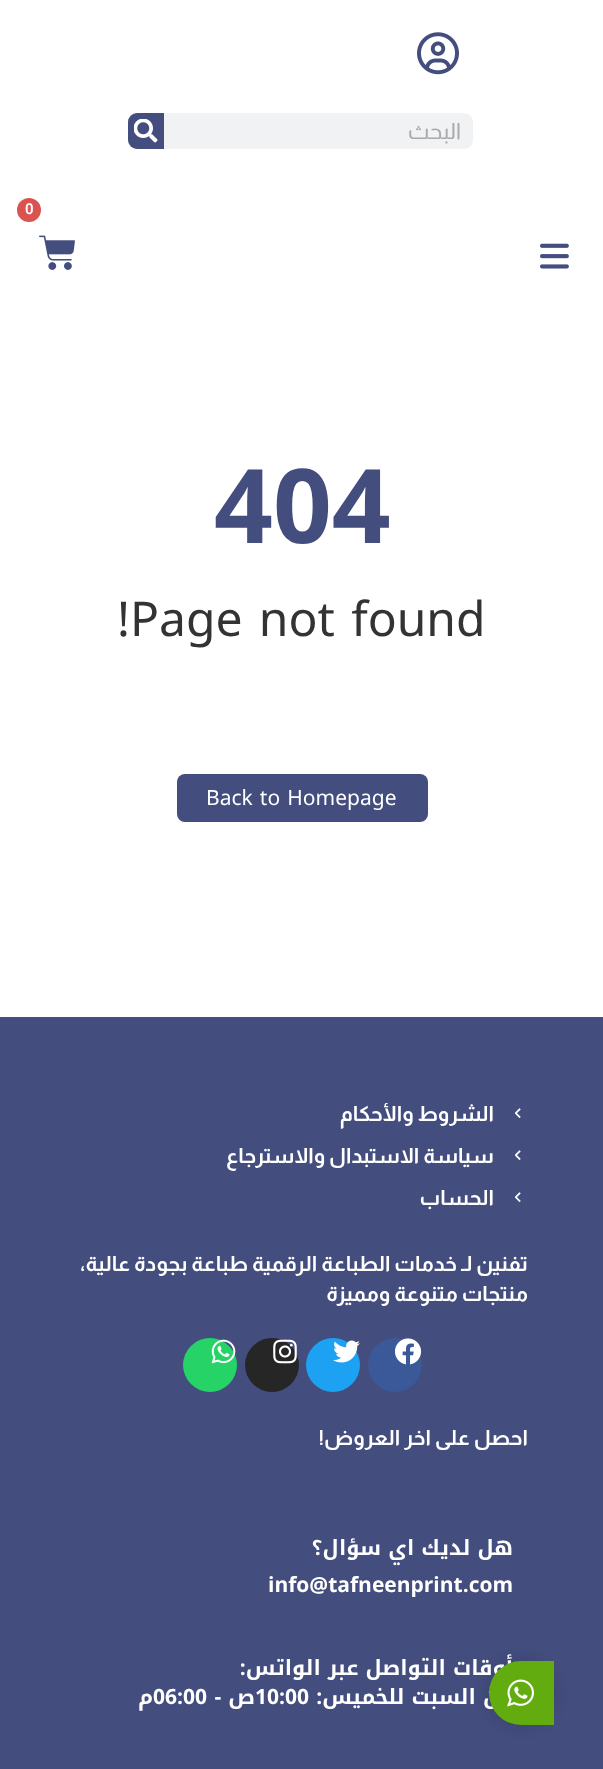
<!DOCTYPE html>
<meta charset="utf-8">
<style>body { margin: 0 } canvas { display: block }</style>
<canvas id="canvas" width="603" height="1769"></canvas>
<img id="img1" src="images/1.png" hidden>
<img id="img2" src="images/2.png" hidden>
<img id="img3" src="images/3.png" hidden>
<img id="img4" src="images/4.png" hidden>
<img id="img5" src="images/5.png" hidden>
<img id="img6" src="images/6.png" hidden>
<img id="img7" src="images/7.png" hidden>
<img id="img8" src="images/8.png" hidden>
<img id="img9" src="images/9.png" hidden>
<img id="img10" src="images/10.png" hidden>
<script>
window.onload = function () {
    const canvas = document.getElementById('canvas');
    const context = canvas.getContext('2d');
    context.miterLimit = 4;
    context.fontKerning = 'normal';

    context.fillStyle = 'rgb(255, 255, 255)';
    context.fillRect(0, 0, 603, 1769);
    context.drawImage(document.getElementById('img1'), 417, 32, 42, 43);
    context.fillStyle = 'rgb(241, 242, 243)';
    context.beginPath();
    context.roundRect(128, 113, 345, 36, 9);
    context.fill();
    context.fillStyle = 'rgb(67, 77, 126)';
    context.beginPath();
    context.roundRect(128, 113, 36, 36, [9, 0, 0, 9]);
    context.fill();
    context.drawImage(document.getElementById('img2'), 134, 119, 24, 24);
    context.fillStyle = 'rgb(217, 83, 79)';
    context.beginPath();
    context.arc(29, 210, 12, 0, 2 * Math.PI);
    context.fill();
    context.drawImage(document.getElementById('img3'), 39, 235, 36, 35);
    context.drawImage(document.getElementById('img4'), 540, 243, 29, 26);
    context.fillStyle = 'rgb(67, 77, 126)';
    context.beginPath();
    context.roundRect(177, 774, 251, 48, 8);
    context.fill();
    context.fillRect(0, 1017, 603, 752);
    context.drawImage(document.getElementById('img5'), 514, 1108, 7, 10);
    context.drawImage(document.getElementById('img5'), 514, 1150, 7, 10);
    context.drawImage(document.getElementById('img5'), 514, 1192, 7, 10);
    context.fillStyle = 'rgb(59, 89, 152)';
    context.beginPath();
    context.arc(395, 1365, 27, 0, 2 * Math.PI);
    context.fill();
    context.drawImage(document.getElementById('img6'), 395, 1338, 27, 27);
    context.fillStyle = 'rgb(29, 161, 242)';
    context.beginPath();
    context.arc(333, 1365, 27, 0, 2 * Math.PI);
    context.fill();
    context.drawImage(document.getElementById('img7'), 333, 1340, 27, 23);
    context.fillStyle = 'rgb(38, 38, 38)';
    context.beginPath();
    context.arc(272, 1365, 27, 0, 2 * Math.PI);
    context.fill();
    context.drawImage(document.getElementById('img8'), 273, 1339, 24, 25);
    context.fillStyle = 'rgb(37, 211, 102)';
    context.beginPath();
    context.arc(210, 1365, 27, 0, 2 * Math.PI);
    context.fill();
    context.drawImage(document.getElementById('img9'), 211, 1339, 25, 25);
    context.fillStyle = 'rgba(0, 0, 0, 0.15)';
    context.filter = 'blur(7.5px)';
    context.beginPath();
    context.roundRect(489, 1661, 65, 64, 32);
    context.fill();
    context.filter = 'none';
    context.direction = 'rtl';
    context.font = '22.5px Almarai';
    context.fillStyle = 'rgb(170, 170, 170)';
    context.fillText('البحث', 461, 139);
    context.direction = 'ltr';
    context.font = '600 15px Roboto';
    context.fillStyle = 'rgb(255, 255, 255)';
    context.fillText('0', 25, 214);
    context.font = 'bold 103px Noto Kufi Arabic';
    context.fillStyle = 'rgb(67, 77, 126)';
    context.fillText('404', 214, 543);
    context.font = '48px Noto Kufi Arabic';
    context.fillStyle = 'rgb(51, 51, 51)';
    context.fillText('!Page not found', 117, 636);
    context.font = '21px Noto Kufi Arabic';
    context.fillStyle = 'rgb(255, 255, 255)';
    context.fillText('Back to Homepage', 206, 805);
    context.direction = 'rtl';
    context.font = 'bold 21px Almarai';
    context.fillText('الشروط والأحكام', 494, 1121);
    context.fillText('سياسة الاستبدال والاسترجاع', 494, 1163);
    context.fillText('الحساب', 494, 1205);
    context.fillText('تفنين لـ خدمات الطباعة الرقمية طباعة بجودة عالية،', 528, 1271);
    context.fillText('منتجات متنوعة ومميزة', 528, 1301);
    context.fillText('احصل على اخر العروض!', 528, 1445);
    context.font = 'bold 21px Noto Kufi Arabic';
    context.fillText('هل لديك اي سؤال؟', 513, 1555);
    context.direction = 'ltr';
    context.fillText('info@tafneenprint.com', 268, 1592);
    context.direction = 'rtl';
    context.fillText('أوقات التواصل عبر الواتس:', 513, 1675);
    context.fillText('من السبت للخميس:', 513, 1704);
    context.direction = 'ltr';
    context.fillText('10:00', 255, 1704);
    context.direction = 'rtl';
    context.fillText('ص -', 255, 1704);
    context.direction = 'ltr';
    context.fillText('06:00', 153, 1704);
    context.direction = 'rtl';
    context.fillText('م', 153, 1704);
    context.fillStyle = 'rgb(99, 172, 16)';
    context.beginPath();
    context.roundRect(489, 1661, 65, 64, [32, 0, 0, 32]);
    context.fill();
    context.drawImage(document.getElementById('img10'), 507, 1679, 27, 28);
};
</script>
